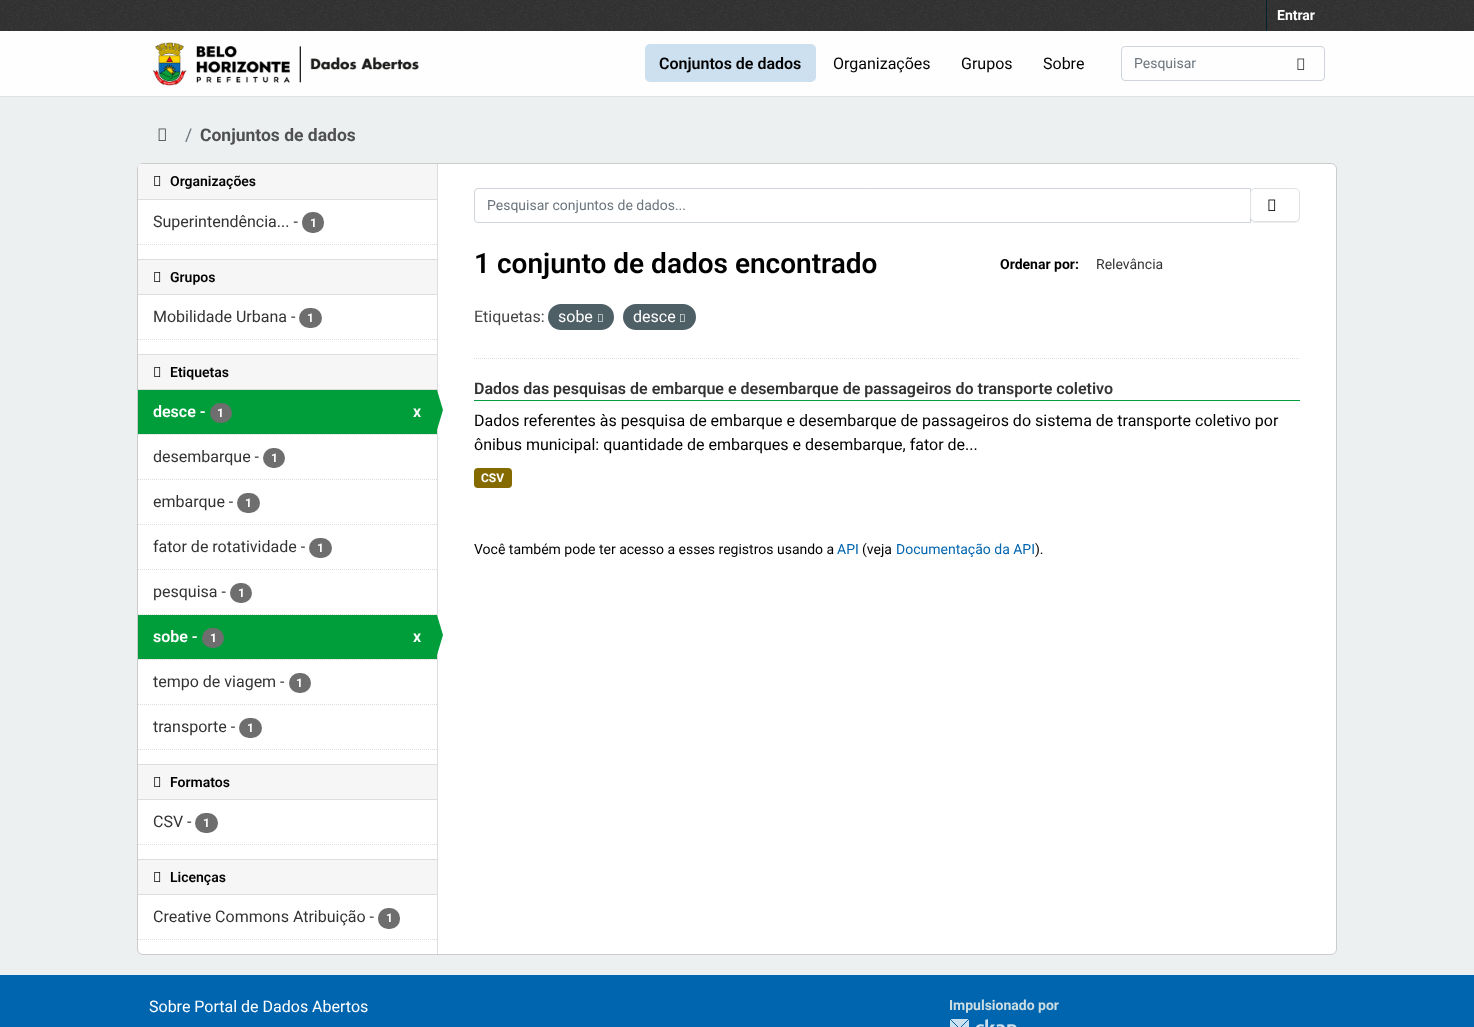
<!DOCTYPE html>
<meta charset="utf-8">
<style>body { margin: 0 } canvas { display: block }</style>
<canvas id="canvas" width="1474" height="1027"></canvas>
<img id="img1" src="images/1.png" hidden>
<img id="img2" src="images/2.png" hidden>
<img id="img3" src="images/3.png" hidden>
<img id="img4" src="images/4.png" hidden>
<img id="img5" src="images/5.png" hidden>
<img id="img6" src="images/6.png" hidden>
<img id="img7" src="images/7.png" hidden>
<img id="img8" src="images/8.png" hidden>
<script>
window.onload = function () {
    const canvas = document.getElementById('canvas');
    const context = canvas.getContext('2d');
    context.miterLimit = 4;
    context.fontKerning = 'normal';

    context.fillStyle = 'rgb(236, 240, 241)';
    context.fillRect(0, 0, 1474, 1027);
    context.fillStyle = 'rgb(51, 51, 51)';
    context.fillRect(0, 0, 1474, 31);
    context.drawImage(document.getElementById('img1'), 0, 0, 1474, 31);
    context.fillStyle = 'rgb(0, 35, 46)';
    context.fillRect(1266, 0, 1, 31);
    context.fillStyle = 'rgb(254, 254, 254)';
    context.fillRect(0, 31, 1474, 65);
    context.fillStyle = 'rgb(222, 226, 230)';
    context.fillRect(0, 96, 1474, 1);
    context.drawImage(document.getElementById('img2'), 152, 42, 267, 44);
    context.fillStyle = 'rgb(204, 224, 239)';
    context.beginPath();
    context.roundRect(645, 44, 171, 38, 5);
    context.fill();
    context.beginPath();
    context.roundRect(1121.5, 46.5, 203, 34, 3.5);
    context.strokeStyle = 'rgb(206, 212, 218)';
    context.stroke();
    context.drawImage(document.getElementById('img3'), 1297, 58, 8, 12);
    context.drawImage(document.getElementById('img4'), 158, 128, 8, 13);
    context.fillStyle = 'rgb(255, 255, 255)';
    context.beginPath();
    context.roundRect(137.5, 163.5, 1199, 791, 5.5);
    context.fill();
    context.strokeStyle = 'rgb(204, 204, 204)';
    context.stroke();
    context.fillStyle = 'rgb(246, 246, 246)';
    context.beginPath();
    context.roundRect(138, 164, 299, 36, [3, 0, 0, 0]);
    context.fill();
    context.fillStyle = 'rgb(221, 221, 221)';
    context.fillRect(138, 199, 299, 1);
    context.drawImage(document.getElementById('img5'), 154, 176, 7, 10);
    context.fillStyle = 'rgb(110, 110, 110)';
    context.beginPath();
    context.roundRect(302, 212, 22, 21, 10);
    context.fill();
    context.beginPath();
    context.moveTo(138, 244.5);
    context.lineTo(437, 244.5);
    context.strokeStyle = 'rgb(221, 221, 221)';
    context.setLineDash([1, 1]);
    context.stroke();
    context.fillStyle = 'rgb(246, 246, 246)';
    context.fillRect(138, 260, 299, 34);
    context.fillStyle = 'rgb(221, 221, 221)';
    context.fillRect(138, 259, 299, 1);
    context.fillRect(138, 294, 299, 1);
    context.drawImage(document.getElementById('img5'), 154, 272, 7, 10);
    context.fillStyle = 'rgb(110, 110, 110)';
    context.beginPath();
    context.roundRect(299, 308, 23, 20, 10);
    context.fill();
    context.beginPath();
    context.moveTo(138, 339.5);
    context.lineTo(437, 339.5);
    context.stroke();
    context.fillStyle = 'rgb(246, 246, 246)';
    context.fillRect(138, 355, 299, 34);
    context.fillStyle = 'rgb(221, 221, 221)';
    context.fillRect(138, 354, 299, 1);
    context.fillRect(138, 389, 299, 1);
    context.drawImage(document.getElementById('img5'), 154, 367, 7, 10);
    context.fillStyle = 'rgb(246, 246, 246)';
    context.fillRect(139, 434, 297, 1);
    context.beginPath();
    context.moveTo(138, 434.5);
    context.lineTo(437, 434.5);
    context.stroke();
    context.fillStyle = 'rgb(0, 158, 59)';
    context.fillRect(138, 390, 299, 44);
    context.fillStyle = 'rgb(110, 110, 110)';
    context.beginPath();
    context.roundRect(210, 403, 22, 20, 10);
    context.fill();
    context.fillStyle = 'rgb(221, 221, 221)';
    context.fillRect(437, 164, 1, 790);
    context.fillStyle = 'rgb(0, 158, 59)';
    context.beginPath();
    context.moveTo(437, 430);
    context.lineTo(437, 390);
    context.lineTo(443, 410);
    context.closePath();
    context.fill();
    context.beginPath();
    context.moveTo(138, 479.5);
    context.lineTo(437, 479.5);
    context.stroke();
    context.fillStyle = 'rgb(110, 110, 110)';
    context.beginPath();
    context.roundRect(263, 448, 22, 20, 10);
    context.fill();
    context.beginPath();
    context.moveTo(138, 524.5);
    context.lineTo(437, 524.5);
    context.stroke();
    context.beginPath();
    context.roundRect(237, 493, 23, 20, 10);
    context.fill();
    context.beginPath();
    context.moveTo(138, 569.5);
    context.lineTo(437, 569.5);
    context.stroke();
    context.beginPath();
    context.roundRect(309, 538, 23, 20, 10);
    context.fill();
    context.beginPath();
    context.moveTo(138, 614.5);
    context.lineTo(437, 614.5);
    context.stroke();
    context.beginPath();
    context.roundRect(230, 583, 22, 20, 10);
    context.fill();
    context.fillStyle = 'rgb(246, 246, 246)';
    context.fillRect(139, 659, 297, 1);
    context.beginPath();
    context.moveTo(138, 659.5);
    context.lineTo(437, 659.5);
    context.stroke();
    context.fillStyle = 'rgb(0, 158, 59)';
    context.fillRect(138, 615, 299, 44);
    context.fillStyle = 'rgb(110, 110, 110)';
    context.beginPath();
    context.roundRect(202, 628, 22, 20, 10);
    context.fill();
    context.fillStyle = 'rgb(0, 158, 59)';
    context.beginPath();
    context.moveTo(437, 655);
    context.lineTo(437, 615);
    context.lineTo(443, 635);
    context.closePath();
    context.fill();
    context.beginPath();
    context.moveTo(138, 704.5);
    context.lineTo(437, 704.5);
    context.stroke();
    context.fillStyle = 'rgb(110, 110, 110)';
    context.beginPath();
    context.roundRect(289, 673, 22, 20, 10);
    context.fill();
    context.beginPath();
    context.roundRect(239, 718, 23, 20, 10);
    context.fill();
    context.beginPath();
    context.moveTo(138, 749.5);
    context.lineTo(437, 749.5);
    context.stroke();
    context.fillStyle = 'rgb(246, 246, 246)';
    context.fillRect(138, 765, 299, 34);
    context.fillStyle = 'rgb(221, 221, 221)';
    context.fillRect(138, 764, 299, 1);
    context.fillRect(138, 799, 299, 1);
    context.drawImage(document.getElementById('img5'), 154, 777, 7, 10);
    context.fillStyle = 'rgb(110, 110, 110)';
    context.beginPath();
    context.roundRect(195, 813, 23, 20, 10);
    context.fill();
    context.beginPath();
    context.moveTo(138, 844.5);
    context.lineTo(437, 844.5);
    context.stroke();
    context.fillStyle = 'rgb(246, 246, 246)';
    context.fillRect(138, 860, 299, 34);
    context.fillStyle = 'rgb(221, 221, 221)';
    context.fillRect(138, 859, 299, 1);
    context.fillRect(138, 894, 299, 1);
    context.drawImage(document.getElementById('img5'), 154, 872, 7, 10);
    context.fillStyle = 'rgb(110, 110, 110)';
    context.beginPath();
    context.roundRect(378, 908, 22, 21, 10);
    context.fill();
    context.beginPath();
    context.moveTo(138, 939.5);
    context.lineTo(437, 939.5);
    context.stroke();
    context.beginPath();
    context.moveTo(474, 358.5);
    context.lineTo(1300, 358.5);
    context.stroke();
    context.beginPath();
    context.roundRect(474.5, 188.5, 776, 34, [3.5, 0, 0, 3.5]);
    context.strokeStyle = 'rgb(206, 212, 218)';
    context.setLineDash([]);
    context.stroke();
    context.fillStyle = 'rgba(0, 0, 0, 0.07)';
    context.filter = 'blur(0.5px)';
    context.beginPath();
    context.roundRect(1250, 189, 50, 34, 5);
    context.fill();
    context.filter = 'none';
    context.fillStyle = 'rgb(255, 255, 255)';
    context.beginPath();
    context.roundRect(1250.5, 188.5, 49, 33, 4.5);
    context.fill();
    context.strokeStyle = 'rgb(222, 226, 230)';
    context.stroke();
    context.drawImage(document.getElementById('img6'), 1268, 199, 8, 12);
    context.fillStyle = 'rgb(78, 95, 101)';
    context.beginPath();
    context.roundRect(548, 304, 66, 26, 13);
    context.fill();
    context.drawImage(document.getElementById('img7'), 598, 314, 5, 8);
    context.beginPath();
    context.roundRect(623, 304, 73, 26, 13);
    context.fill();
    context.drawImage(document.getElementById('img7'), 680, 314, 5, 8);
    context.fillStyle = 'rgb(0, 158, 59)';
    context.fillRect(474, 400, 826, 1);
    context.fillStyle = 'rgb(133, 106, 0)';
    context.beginPath();
    context.roundRect(474, 468, 38, 20, 4);
    context.fill();
    context.fillStyle = 'rgb(0, 101, 175)';
    context.fillRect(0, 975, 1474, 52);
    context.drawImage(document.getElementById('img8'), 950, 1019, 67, 8);
    context.font = 'bold 14px Roboto';
    context.fillStyle = 'rgb(255, 255, 255)';
    context.fillText('Entrar', 1277, 20);
    context.font = '600 16px Roboto';
    context.fillStyle = 'rgb(0, 0, 0)';
    context.fillText('Conjuntos de dados', 659, 69);
    context.font = '16px Roboto';
    context.fillText('Organizações', 833, 69);
    context.fillText('Grupos', 961, 69);
    context.fillText('Sobre', 1043, 69);
    context.font = '14px Roboto';
    context.fillStyle = 'rgb(108, 117, 125)';
    context.fillText('Pesquisar', 1134, 68);
    context.font = '17.5px Roboto';
    context.fillText('/', 185, 141);
    context.font = 'bold 17.5px Roboto';
    context.fillStyle = 'rgb(80, 80, 80)';
    context.fillText('Conjuntos de dados', 200, 141);
    context.font = '600 14px Roboto';
    context.fillStyle = 'rgb(0, 0, 0)';
    context.fillText('Organizações', 170, 186);
    context.font = '16px Roboto';
    context.fillStyle = 'rgb(51, 51, 51)';
    context.fillText('Superintendência... -', 153, 227);
    context.font = 'bold 12px Roboto';
    context.fillStyle = 'rgb(255, 255, 255)';
    context.fillText('1', 310, 227);
    context.font = '600 14px Roboto';
    context.fillStyle = 'rgb(0, 0, 0)';
    context.fillText('Grupos', 170, 282);
    context.font = '16px Roboto';
    context.fillStyle = 'rgb(51, 51, 51)';
    context.fillText('Mobilidade Urbana -', 153, 322);
    context.font = 'bold 12px Roboto';
    context.fillStyle = 'rgb(255, 255, 255)';
    context.fillText('1', 307, 322);
    context.font = '600 14px Roboto';
    context.fillStyle = 'rgb(0, 0, 0)';
    context.fillText('Etiquetas', 170, 377);
    context.font = '600 16px Roboto';
    context.fillStyle = 'rgb(255, 255, 255)';
    context.fillText('desce -', 153, 417);
    context.font = 'bold 12px Roboto';
    context.fillText('1', 217, 417);
    context.font = '600 16px Roboto';
    context.fillText('x', 413, 417);
    context.font = '16px Roboto';
    context.fillStyle = 'rgb(51, 51, 51)';
    context.fillText('desembarque -', 153, 462);
    context.font = 'bold 12px Roboto';
    context.fillStyle = 'rgb(255, 255, 255)';
    context.fillText('1', 271, 462);
    context.font = '16px Roboto';
    context.fillStyle = 'rgb(51, 51, 51)';
    context.fillText('embarque -', 153, 507);
    context.font = 'bold 12px Roboto';
    context.fillStyle = 'rgb(255, 255, 255)';
    context.fillText('1', 245, 507);
    context.font = '16px Roboto';
    context.fillStyle = 'rgb(51, 51, 51)';
    context.fillText('fator de rotatividade -', 153, 552);
    context.font = 'bold 12px Roboto';
    context.fillStyle = 'rgb(255, 255, 255)';
    context.fillText('1', 317, 552);
    context.font = '16px Roboto';
    context.fillStyle = 'rgb(51, 51, 51)';
    context.fillText('pesquisa -', 153, 597);
    context.font = 'bold 12px Roboto';
    context.fillStyle = 'rgb(255, 255, 255)';
    context.fillText('1', 238, 597);
    context.font = '600 16px Roboto';
    context.fillText('sobe -', 153, 642);
    context.font = 'bold 12px Roboto';
    context.fillText('1', 210, 642);
    context.font = '600 16px Roboto';
    context.fillText('x', 413, 642);
    context.font = '16px Roboto';
    context.fillStyle = 'rgb(51, 51, 51)';
    context.fillText('tempo de viagem -', 153, 687);
    context.font = 'bold 12px Roboto';
    context.fillStyle = 'rgb(255, 255, 255)';
    context.fillText('1', 296, 687);
    context.font = '16px Roboto';
    context.fillStyle = 'rgb(51, 51, 51)';
    context.fillText('transporte -', 153, 732);
    context.font = 'bold 12px Roboto';
    context.fillStyle = 'rgb(255, 255, 255)';
    context.fillText('1', 247, 732);
    context.font = '600 14px Roboto';
    context.fillStyle = 'rgb(0, 0, 0)';
    context.fillText('Formatos', 170, 787);
    context.font = '16px Roboto';
    context.fillStyle = 'rgb(51, 51, 51)';
    context.fillText('CSV -', 153, 827);
    context.font = 'bold 12px Roboto';
    context.fillStyle = 'rgb(255, 255, 255)';
    context.fillText('1', 203, 827);
    context.font = '600 14px Roboto';
    context.fillStyle = 'rgb(0, 0, 0)';
    context.fillText('Licenças', 170, 882);
    context.font = '16px Roboto';
    context.fillStyle = 'rgb(51, 51, 51)';
    context.fillText('Creative Commons Atribuição -', 153, 922);
    context.font = 'bold 12px Roboto';
    context.fillStyle = 'rgb(255, 255, 255)';
    context.fillText('1', 386, 922);
    context.font = '14px Roboto';
    context.fillStyle = 'rgb(108, 117, 125)';
    context.fillText('Pesquisar conjuntos de dados...', 487, 210);
    context.font = '600 28px Roboto';
    context.fillStyle = 'rgb(0, 0, 0)';
    context.fillText('1 conjunto de dados encontrado', 474, 273);
    context.font = 'bold 14px Roboto';
    context.fillText('Ordenar por:', 1000, 269);
    context.font = '14px Roboto';
    context.fillStyle = 'rgb(51, 51, 51)';
    context.fillText('Relevância', 1096, 269);
    context.font = '16px Roboto';
    context.fillStyle = 'rgb(68, 68, 68)';
    context.fillText('Etiquetas:', 474, 322);
    context.fillStyle = 'rgb(255, 255, 255)';
    context.fillText('sobe', 558, 322);
    context.fillText('desce', 633, 322);
    context.font = '600 16px Roboto';
    context.fillStyle = 'rgb(51, 51, 51)';
    context.fillText('Dados das pesquisas de embarque e desembarque de passageiros do transporte coletivo', 474, 394);
    context.font = '16px Roboto';
    context.fillStyle = 'rgb(0, 0, 0)';
    context.fillText('Dados referentes às pesquisa de embarque e desembarque de passageiros do sistema de transporte coletivo por', 474, 426);
    context.fillText('ônibus municipal: quantidade de embarques e desembarque, fator de...', 474, 450);
    context.font = 'bold 12px Roboto';
    context.fillStyle = 'rgb(255, 255, 255)';
    context.fillText('CSV', 481, 482);
    context.font = '14px Roboto';
    context.fillStyle = 'rgb(0, 0, 0)';
    context.fillText('Você também pode ter acesso a esses registros usando a', 474, 554);
    context.fillStyle = 'rgb(0, 101, 175)';
    context.fillText('API', 837, 554);
    context.fillStyle = 'rgb(0, 0, 0)';
    context.fillText('(veja', 862, 554);
    context.fillStyle = 'rgb(0, 101, 175)';
    context.fillText('Documentação da API', 896, 554);
    context.fillStyle = 'rgb(0, 0, 0)';
    context.fillText(').', 1035, 554);
    context.font = '16px Roboto';
    context.fillStyle = 'rgb(255, 255, 255)';
    context.fillText('Sobre Portal de Dados Abertos', 149, 1012);
    context.font = 'bold 14px Roboto';
    context.fillStyle = 'rgb(204, 222, 227)';
    context.fillText('Impulsionado por', 949, 1010);
};
</script>
